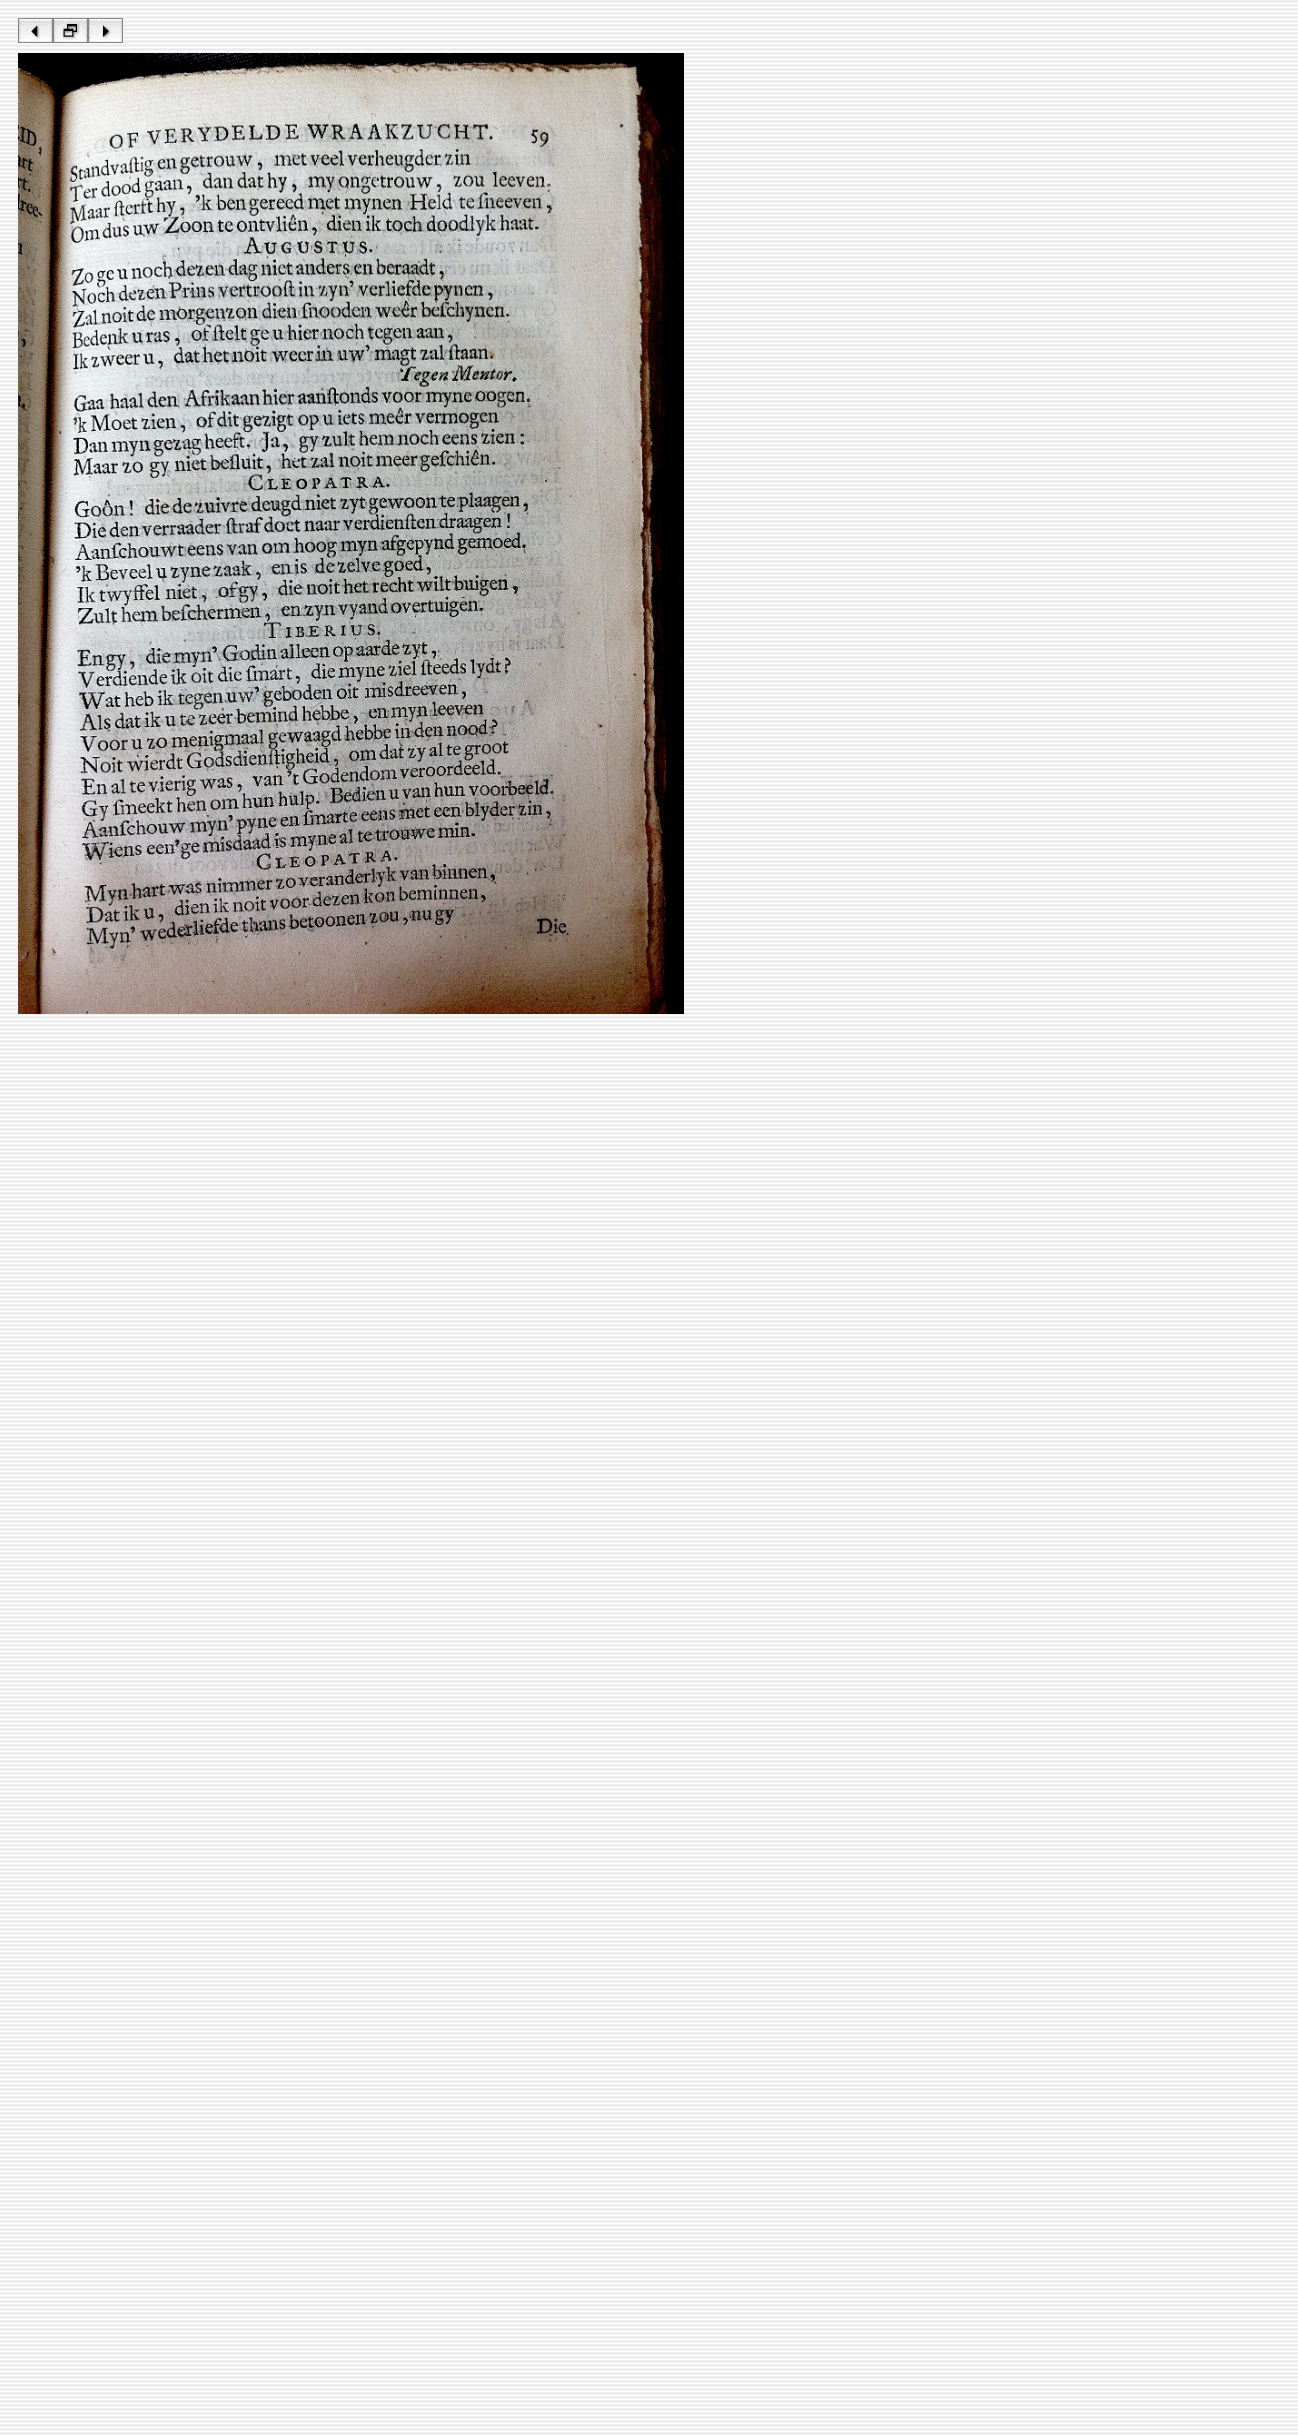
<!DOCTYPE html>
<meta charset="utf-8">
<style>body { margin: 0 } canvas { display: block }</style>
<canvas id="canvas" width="1298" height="2436"></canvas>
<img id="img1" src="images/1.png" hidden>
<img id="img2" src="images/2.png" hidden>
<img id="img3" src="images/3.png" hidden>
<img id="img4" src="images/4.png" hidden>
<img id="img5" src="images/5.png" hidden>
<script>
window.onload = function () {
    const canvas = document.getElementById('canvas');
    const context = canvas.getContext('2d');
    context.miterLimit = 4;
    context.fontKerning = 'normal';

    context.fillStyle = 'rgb(255, 255, 255)';
    context.fillRect(0, 0, 1298, 2436);
    context.drawImage(document.getElementById('img1'), 0, 0, 1298, 2435);
    context.drawImage(document.getElementById('img2'), 18, 18, 35, 25);
    context.drawImage(document.getElementById('img3'), 53, 18, 35, 25);
    context.drawImage(document.getElementById('img4'), 88, 18, 35, 25);
    context.drawImage(document.getElementById('img5'), 18, 53, 666, 961);
};
</script>
